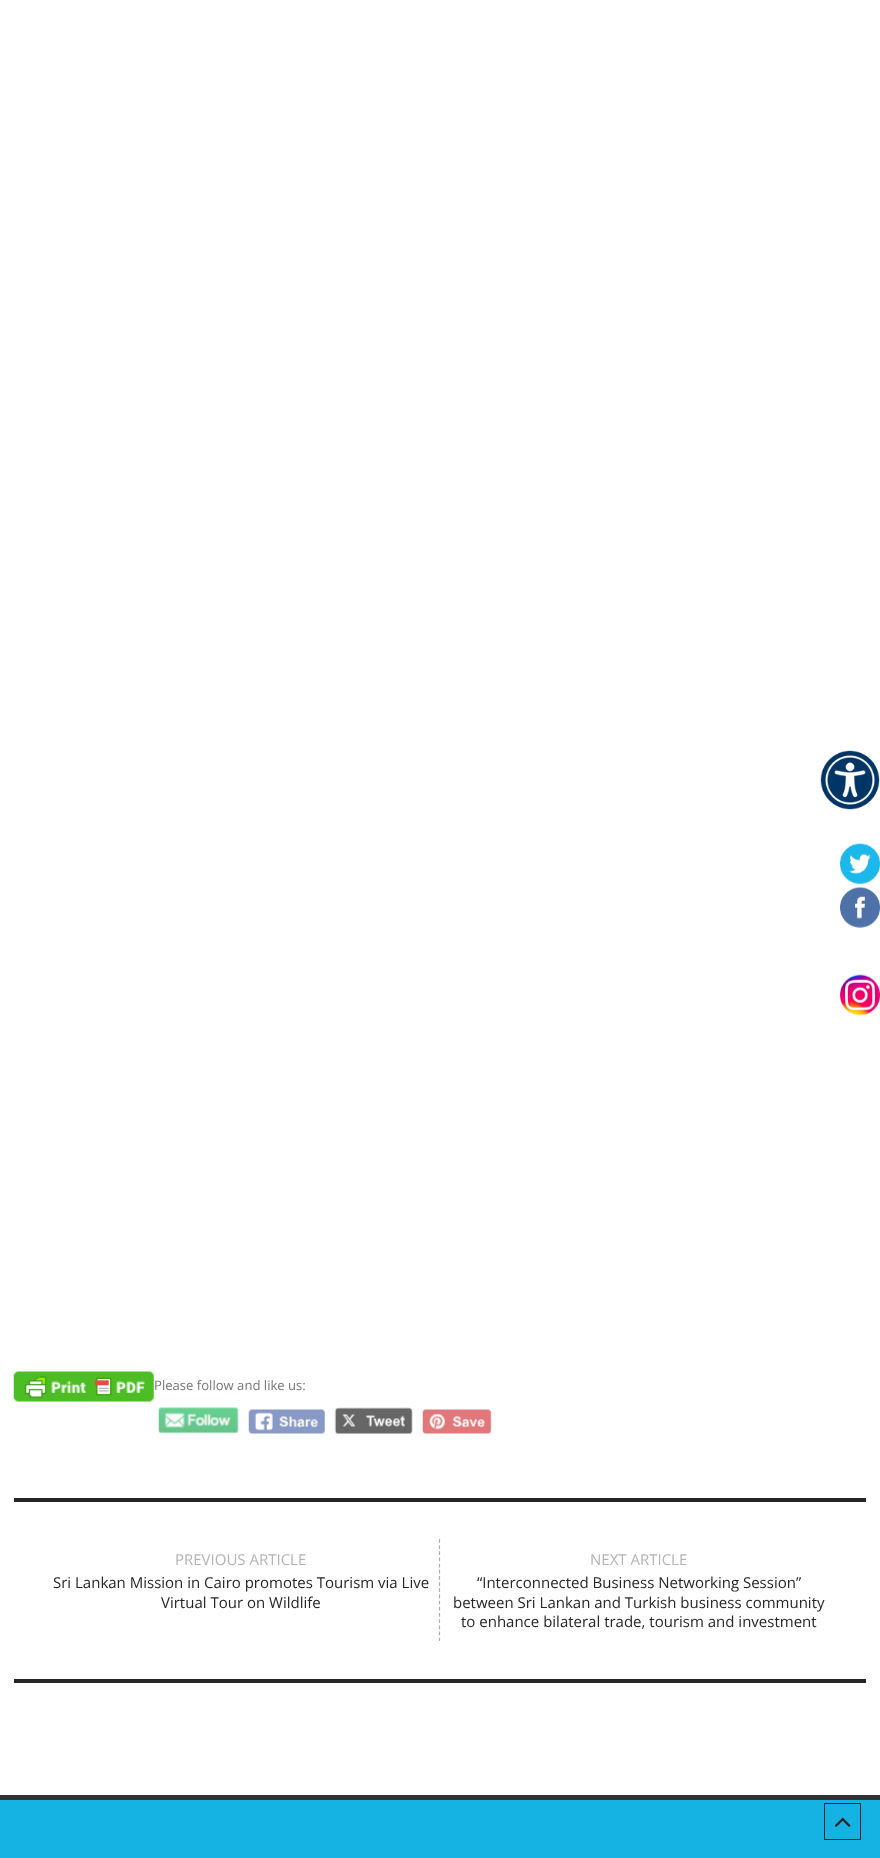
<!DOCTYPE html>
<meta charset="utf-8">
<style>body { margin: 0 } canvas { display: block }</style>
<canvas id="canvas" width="880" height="1858"></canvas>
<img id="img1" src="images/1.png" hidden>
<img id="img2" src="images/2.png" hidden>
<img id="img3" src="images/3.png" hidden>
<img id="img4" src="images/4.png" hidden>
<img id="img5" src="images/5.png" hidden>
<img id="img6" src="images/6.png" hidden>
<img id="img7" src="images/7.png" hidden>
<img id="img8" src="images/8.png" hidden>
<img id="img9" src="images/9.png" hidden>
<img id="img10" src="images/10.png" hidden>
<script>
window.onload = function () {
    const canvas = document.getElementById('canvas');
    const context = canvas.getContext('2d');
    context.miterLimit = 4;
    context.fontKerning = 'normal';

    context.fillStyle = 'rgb(255, 255, 255)';
    context.fillRect(0, 0, 880, 1858);
    context.drawImage(document.getElementById('img1'), 820, 750, 60, 60);
    context.drawImage(document.getElementById('img2'), 840, 843, 40, 41);
    context.drawImage(document.getElementById('img3'), 840, 886, 40, 42);
    context.drawImage(document.getElementById('img4'), 840, 974, 40, 42);
    context.fillStyle = 'rgb(38, 38, 38)';
    context.fillRect(14, 1498, 852, 4);
    context.drawImage(document.getElementById('img5'), 13, 1371, 141, 31);
    context.drawImage(document.getElementById('img6'), 158, 1407, 81, 27);
    context.drawImage(document.getElementById('img7'), 248, 1409, 77, 25);
    context.drawImage(document.getElementById('img8'), 334, 1407, 79, 27);
    context.drawImage(document.getElementById('img9'), 422, 1409, 70, 25);
    context.fillRect(14, 1679, 852, 4);
    context.beginPath();
    context.moveTo(439.5, 1539);
    context.lineTo(439.5, 1641);
    context.strokeStyle = 'rgb(171, 171, 171)';
    context.lineWidth = 1.2;
    context.setLineDash([3.75, 2.42]);
    context.stroke();
    context.fillStyle = 'rgb(20, 179, 227)';
    context.fillRect(0, 1800, 880, 58);
    context.fillStyle = 'rgb(49, 49, 51)';
    context.fillRect(0, 1795, 880, 5);
    context.strokeStyle = 'rgb(38, 38, 38)';
    context.lineWidth = 1;
    context.setLineDash([]);
    context.strokeRect(824.5, 1803.5, 36, 36);
    context.drawImage(document.getElementById('img10'), 835, 1817, 16, 10);
    context.font = '13.1px Open Sans';
    context.fillStyle = 'rgb(119, 119, 119)';
    context.fillText('Please follow and like us:', 154, 1390);
    context.font = '15px Open Sans';
    context.fillStyle = 'rgb(180, 180, 180)';
    context.fillText('PREVIOUS ARTICLE', 175, 1565);
    context.fillStyle = 'rgb(38, 38, 38)';
    context.fillText('Sri Lankan Mission in Cairo promotes Tourism via Live', 53, 1588);
    context.fillText('Virtual Tour on Wildlife', 161, 1608);
    context.fillStyle = 'rgb(180, 180, 180)';
    context.fillText('NEXT ARTICLE', 590, 1565);
    context.fillStyle = 'rgb(38, 38, 38)';
    context.fillText('“Interconnected Business Networking Session”', 477, 1588);
    context.fillText('between Sri Lankan and Turkish business community', 453, 1608);
    context.fillText('to enhance bilateral trade, tourism and investment', 461, 1627);
};
</script>
